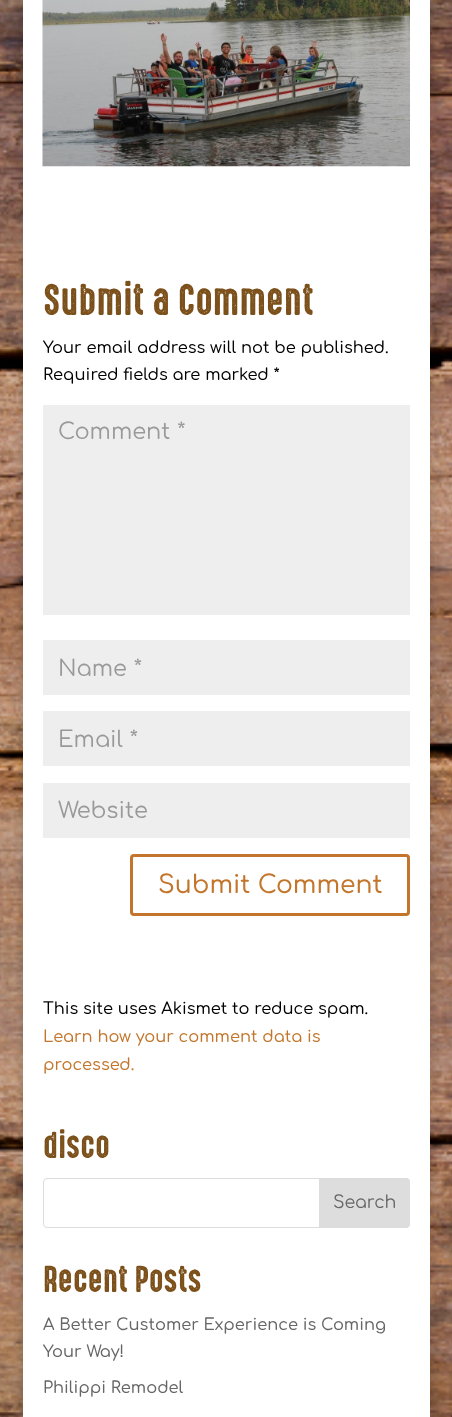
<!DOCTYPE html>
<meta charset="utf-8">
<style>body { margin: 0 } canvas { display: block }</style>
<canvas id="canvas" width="452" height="1417"></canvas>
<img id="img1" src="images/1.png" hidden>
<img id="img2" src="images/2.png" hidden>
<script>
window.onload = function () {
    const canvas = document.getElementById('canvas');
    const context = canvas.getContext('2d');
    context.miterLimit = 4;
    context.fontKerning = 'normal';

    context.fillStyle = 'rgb(255, 255, 255)';
    context.fillRect(0, 0, 452, 1417);
    context.drawImage(document.getElementById('img1'), 0, 0, 452, 1417);
    context.fillStyle = 'rgba(0, 0, 0, 0.2)';
    context.filter = 'blur(6px)';
    context.beginPath();
    context.rect(23, -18, 407, 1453);
    context.fill();
    context.filter = 'none';
    context.fillStyle = 'rgb(255, 255, 255)';
    context.fillRect(23, 0, 407, 1417);
    context.drawImage(document.getElementById('img2'), 42, 0, 368, 167);
    context.fillStyle = 'rgb(238, 238, 238)';
    context.fillRect(43, 405, 367, 210);
    context.fillRect(43, 640, 367, 55);
    context.fillRect(43, 711, 367, 55);
    context.fillRect(43, 783, 367, 55);
    context.beginPath();
    context.roundRect(131.5, 855.5, 277, 59, 2.5);
    context.strokeStyle = 'rgb(195, 118, 43)';
    context.lineWidth = 3;
    context.stroke();
    context.beginPath();
    context.roundRect(43.5, 1178.5, 366, 49, 3.5);
    context.strokeStyle = 'rgb(221, 221, 221)';
    context.lineWidth = 1;
    context.stroke();
    context.fillStyle = 'rgb(221, 221, 221)';
    context.beginPath();
    context.roundRect(319.5, 1178.5, 90, 49, [0, 3.5, 3.5, 0]);
    context.fill();
    context.stroke();
    context.font = '40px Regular';
    context.fillStyle = 'rgb(124, 80, 26)';
    context.fillText('Submit a Comment', 43, 315);
    context.font = '500 16.25px Comfortaa';
    context.fillStyle = 'rgb(0, 0, 0)';
    context.fillText('Your email address will not be published.', 43, 353);
    context.fillText('Required fields are marked *', 43, 380);
    context.font = '22.5px Comfortaa';
    context.fillStyle = 'rgb(153, 153, 153)';
    context.fillText('Comment *', 58, 439);
    context.fillText('Name *', 58, 676);
    context.fillText('Email *', 58, 747);
    context.fillText('Website', 58, 818);
    context.font = '500 25px Comfortaa';
    context.fillStyle = 'rgb(195, 118, 43)';
    context.fillText('Submit Comment', 158, 893);
    context.font = '500 16.25px Comfortaa';
    context.fillStyle = 'rgb(0, 0, 0)';
    context.fillText('This site uses Akismet to reduce spam.', 43, 1014);
    context.fillStyle = 'rgb(195, 118, 43)';
    context.fillText('Learn how your comment data is', 43, 1042);
    context.fillText('processed.', 43, 1070);
    context.font = '33.75px Regular';
    context.fillStyle = 'rgb(124, 80, 26)';
    context.fillText('disco', 43, 1158);
    context.font = '17.5px Comfortaa';
    context.fillStyle = 'rgb(102, 102, 102)';
    context.fillText('Search', 333, 1208);
    context.font = '33.75px Regular';
    context.fillStyle = 'rgb(124, 80, 26)';
    context.fillText('Recent Posts', 43, 1292);
    context.font = '500 16.25px Comfortaa';
    context.fillStyle = 'rgb(102, 102, 102)';
    context.fillText('A Better Customer Experience is Coming', 43, 1330);
    context.fillText('Your Way!', 43, 1357);
    context.fillText('Philippi Remodel', 43, 1393);
};
</script>
